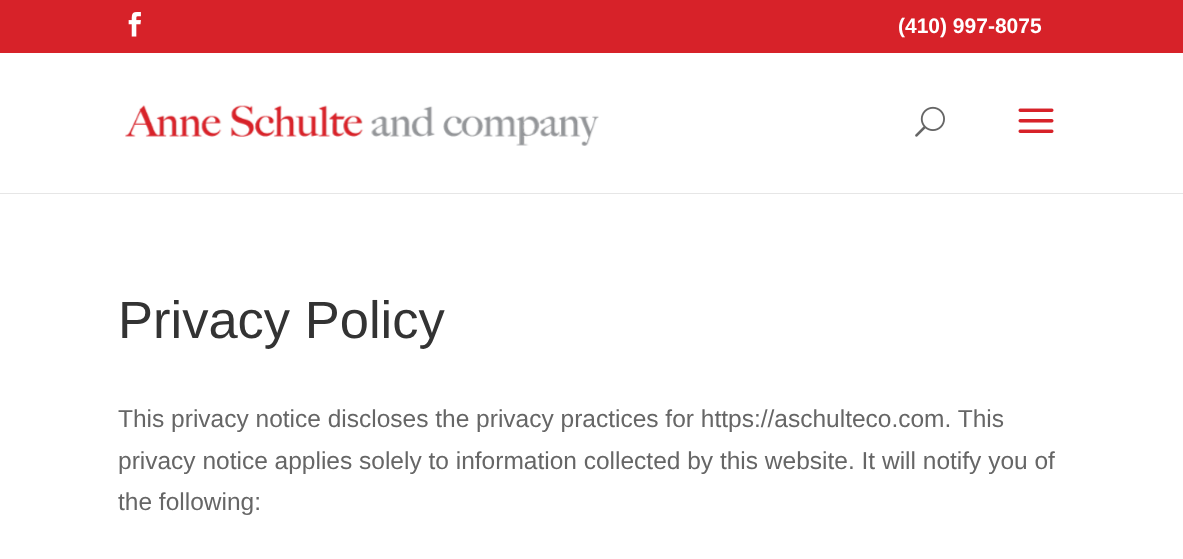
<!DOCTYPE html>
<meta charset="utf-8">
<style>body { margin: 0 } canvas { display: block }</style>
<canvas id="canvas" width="1183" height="559"></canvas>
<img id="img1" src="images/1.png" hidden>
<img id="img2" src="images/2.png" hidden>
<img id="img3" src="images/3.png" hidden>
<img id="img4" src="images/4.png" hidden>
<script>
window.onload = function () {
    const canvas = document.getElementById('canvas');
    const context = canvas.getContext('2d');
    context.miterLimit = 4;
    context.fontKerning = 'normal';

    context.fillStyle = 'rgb(255, 255, 255)';
    context.fillRect(0, 0, 1183, 559);
    context.fillStyle = 'rgb(215, 34, 41)';
    context.fillRect(0, 0, 1183, 53);
    context.drawImage(document.getElementById('img1'), 128, 12, 13, 25);
    context.fillStyle = 'rgb(230, 230, 230)';
    context.fillRect(0, 193, 1183, 1);
    context.drawImage(document.getElementById('img2'), 125, 105, 474, 41);
    context.drawImage(document.getElementById('img3'), 915, 106, 30, 31);
    context.drawImage(document.getElementById('img4'), 1018, 108, 36, 25);
    context.font = 'bold 21px Liberation Sans';
    context.fillStyle = 'rgb(255, 255, 255)';
    context.fillText('(410) 997-8075', 898, 33);
    context.font = '52.5px Liberation Sans';
    context.fillStyle = 'rgb(51, 51, 51)';
    context.fillText('Privacy Policy', 118, 338);
    context.font = '24.5px Liberation Sans';
    context.fillStyle = 'rgb(102, 102, 102)';
    context.fillText('This privacy notice discloses the privacy practices for https://aschulteco.com. This', 118, 427);
    context.fillText('privacy notice applies solely to information collected by this website. It will notify you of', 118, 469);
    context.fillText('the following:', 118, 510);
};
</script>
